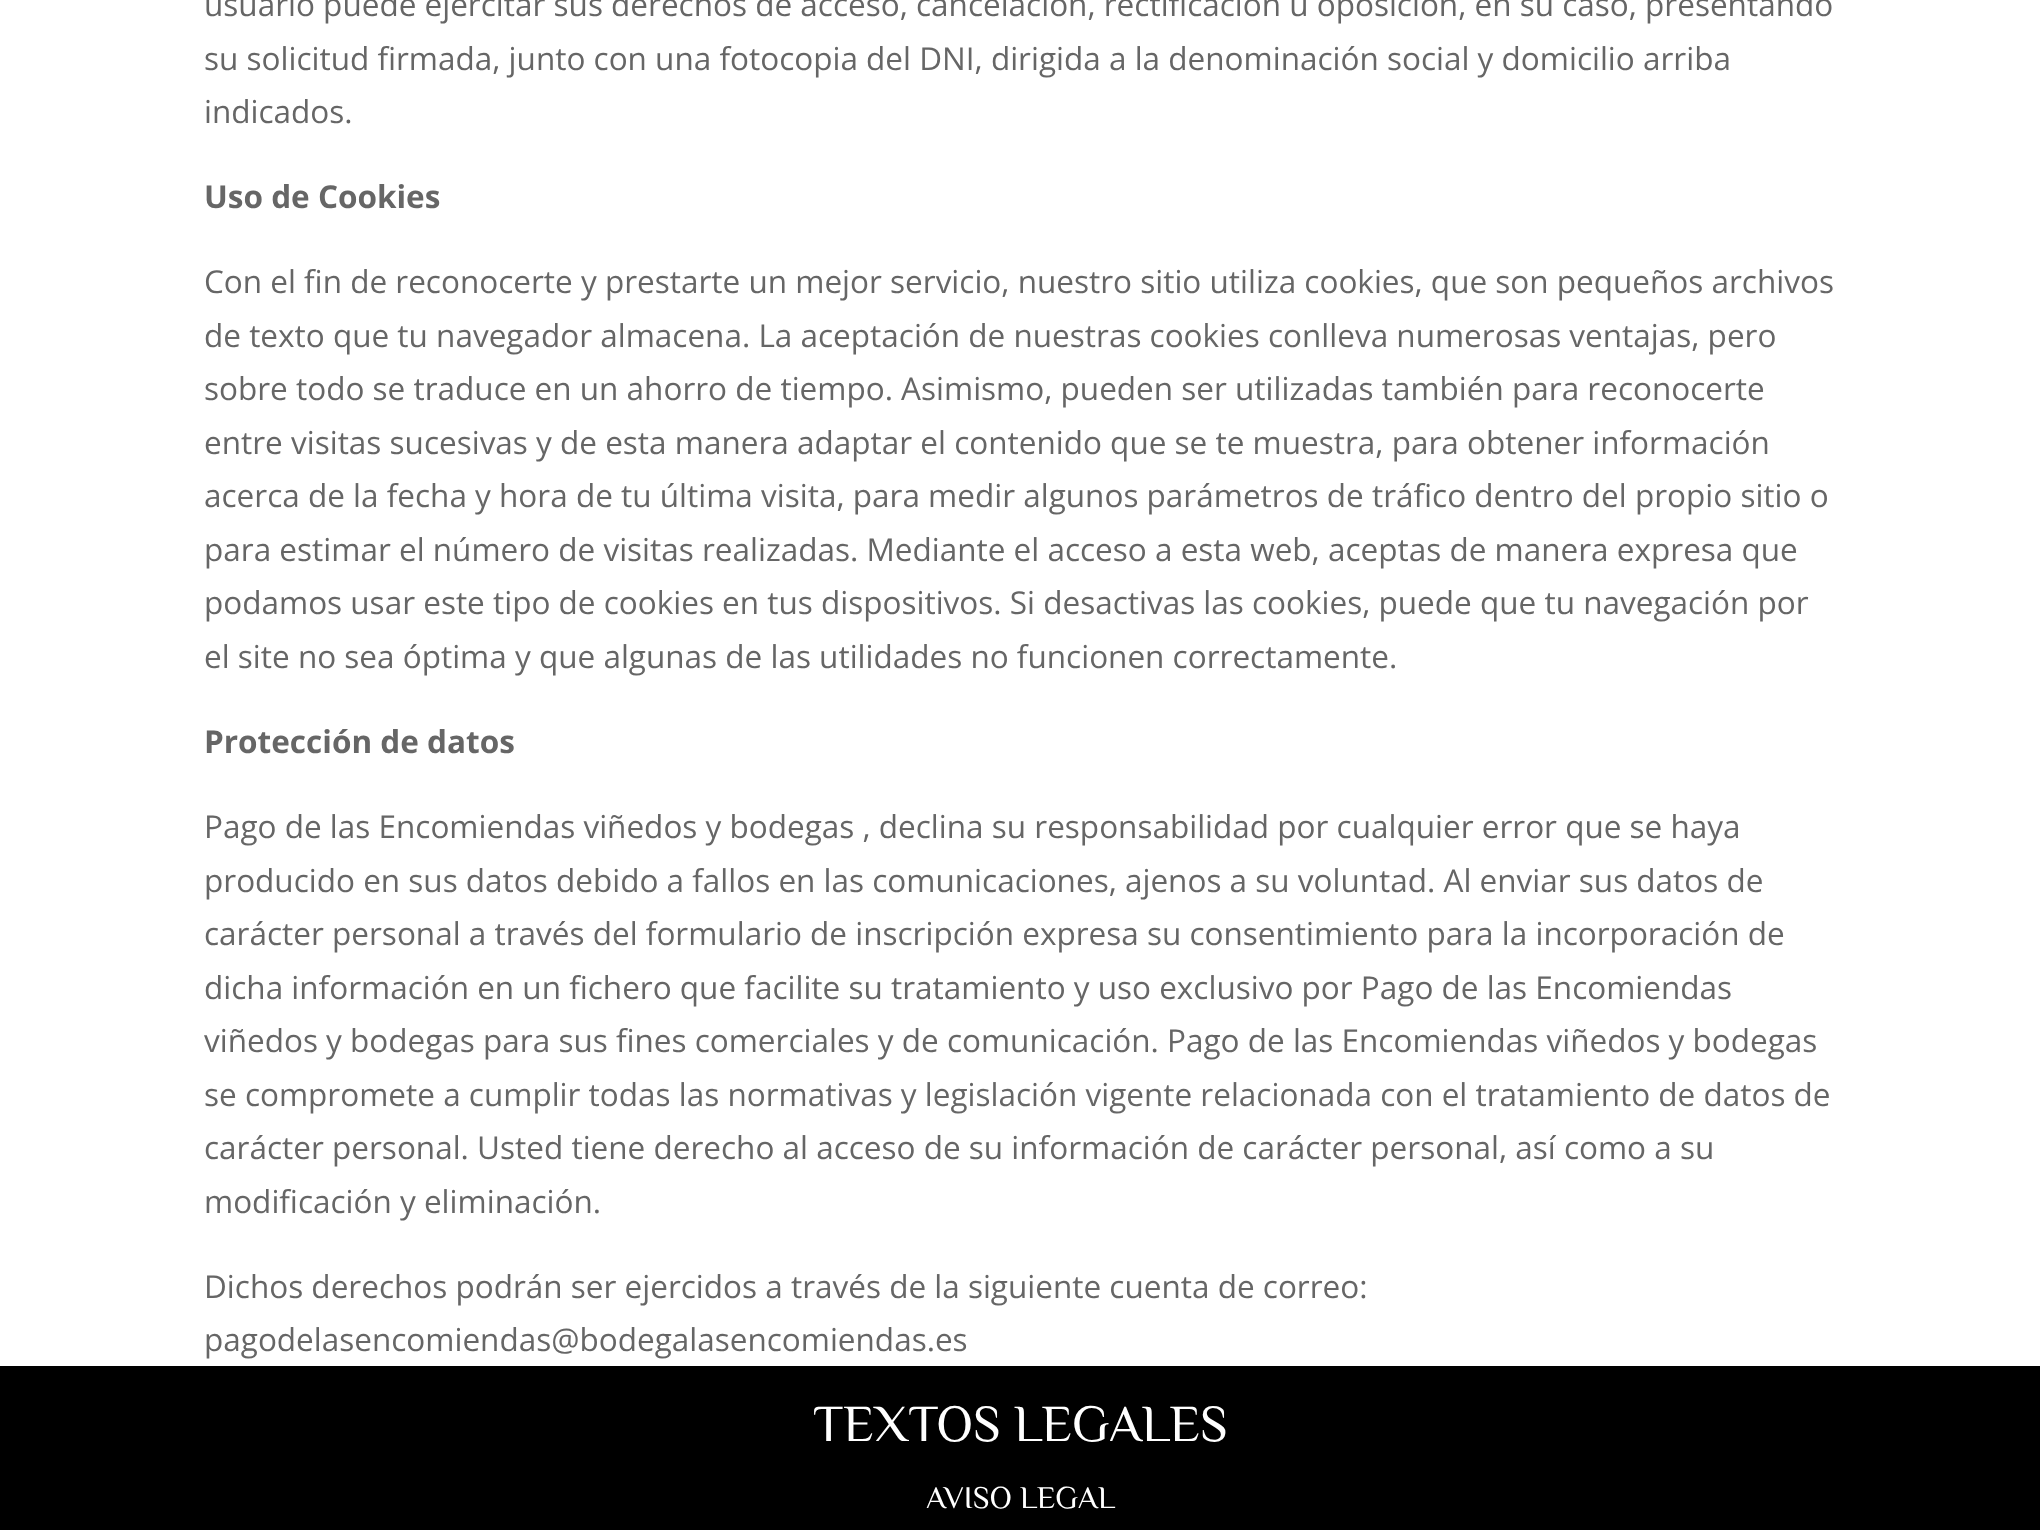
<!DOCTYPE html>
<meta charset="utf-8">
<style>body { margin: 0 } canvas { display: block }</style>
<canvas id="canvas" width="2040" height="1530"></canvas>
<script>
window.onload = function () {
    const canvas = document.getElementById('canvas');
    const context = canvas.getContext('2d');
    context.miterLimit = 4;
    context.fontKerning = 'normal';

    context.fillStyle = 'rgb(255, 255, 255)';
    context.fillRect(0, 0, 2040, 1530);
    context.fillStyle = 'rgb(0, 0, 0)';
    context.fillRect(0, 1366, 2040, 164);
    context.font = '31.5px Open Sans';
    context.fillStyle = 'rgb(102, 102, 102)';
    context.fillText('usuario puede ejercitar sus derechos de acceso, cancelación, rectificación u oposición, en su caso, presentando', 204, 16);
    context.fillText('su solicitud firmada, junto con una fotocopia del DNI, dirigida a la denominación social y domicilio arriba', 204, 70);
    context.fillText('indicados.', 204, 123);
    context.font = 'bold 31.5px Open Sans';
    context.fillText('Uso de Cookies', 204, 208);
    context.font = '31.5px Open Sans';
    context.fillText('Con el fin de reconocerte y prestarte un mejor servicio, nuestro sitio utiliza cookies, que son pequeños archivos', 204, 293);
    context.fillText('de texto que tu navegador almacena. La aceptación de nuestras cookies conlleva numerosas ventajas, pero', 204, 347);
    context.fillText('sobre todo se traduce en un ahorro de tiempo. Asimismo, pueden ser utilizadas también para reconocerte', 204, 400);
    context.fillText('entre visitas sucesivas y de esta manera adaptar el contenido que se te muestra, para obtener información', 204, 454);
    context.fillText('acerca de la fecha y hora de tu última visita, para medir algunos parámetros de tráfico dentro del propio sitio o', 204, 507);
    context.fillText('para estimar el número de visitas realizadas. Mediante el acceso a esta web, aceptas de manera expresa que', 204, 561);
    context.fillText('podamos usar este tipo de cookies en tus dispositivos. Si desactivas las cookies, puede que tu navegación por', 204, 614);
    context.fillText('el site no sea óptima y que algunas de las utilidades no funcionen correctamente.', 204, 668);
    context.font = 'bold 31.5px Open Sans';
    context.fillText('Protección de datos', 204, 753);
    context.font = '31.5px Open Sans';
    context.fillText('Pago de las Encomiendas viñedos y bodegas , declina su responsabilidad por cualquier error que se haya', 204, 838);
    context.fillText('producido en sus datos debido a fallos en las comunicaciones, ajenos a su voluntad. Al enviar sus datos de', 204, 892);
    context.fillText('carácter personal a través del formulario de inscripción expresa su consentimiento para la incorporación de', 204, 945);
    context.fillText('dicha información en un fichero que facilite su tratamiento y uso exclusivo por Pago de las Encomiendas', 204, 999);
    context.fillText('viñedos y bodegas para sus fines comerciales y de comunicación. Pago de las Encomiendas viñedos y bodegas', 204, 1052);
    context.fillText('se compromete a cumplir todas las normativas y legislación vigente relacionada con el tratamiento de datos de', 204, 1106);
    context.fillText('carácter personal. Usted tiene derecho al acceso de su información de carácter personal, así como a su', 204, 1159);
    context.fillText('modificación y eliminación.', 204, 1213);
    context.fillText('Dichos derechos podrán ser ejercidos a través de la siguiente cuenta de correo:', 204, 1298);
    context.fillText('pagodelasencomiendas@bodegalasencomiendas.es', 204, 1351);
    context.font = '51.75px Philosopher';
    context.fillStyle = 'rgb(255, 255, 255)';
    context.fillText('TEXTOS LEGALES', 813, 1441);
    context.font = '31.5px Philosopher';
    context.fillText('AVISO LEGAL', 926, 1508);
};
</script>
